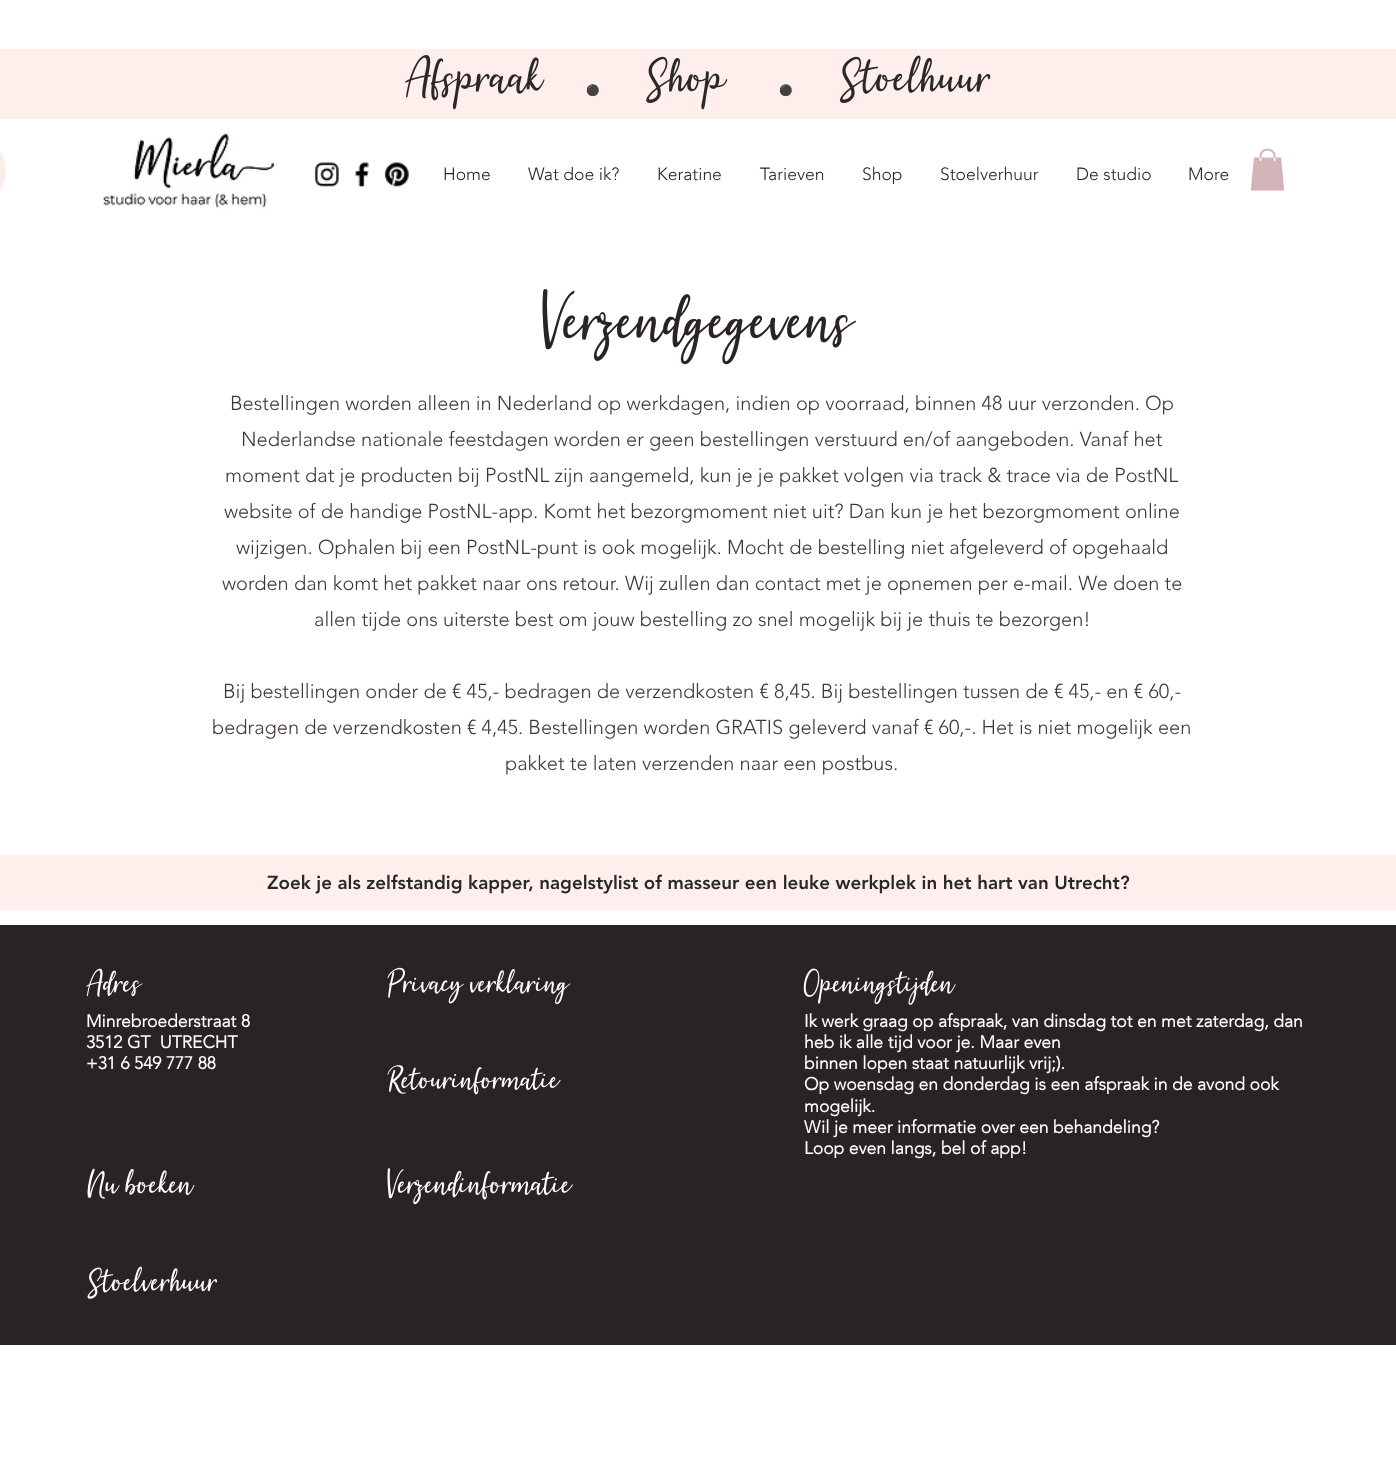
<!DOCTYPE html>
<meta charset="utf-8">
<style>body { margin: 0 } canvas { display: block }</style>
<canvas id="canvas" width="1396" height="1464"></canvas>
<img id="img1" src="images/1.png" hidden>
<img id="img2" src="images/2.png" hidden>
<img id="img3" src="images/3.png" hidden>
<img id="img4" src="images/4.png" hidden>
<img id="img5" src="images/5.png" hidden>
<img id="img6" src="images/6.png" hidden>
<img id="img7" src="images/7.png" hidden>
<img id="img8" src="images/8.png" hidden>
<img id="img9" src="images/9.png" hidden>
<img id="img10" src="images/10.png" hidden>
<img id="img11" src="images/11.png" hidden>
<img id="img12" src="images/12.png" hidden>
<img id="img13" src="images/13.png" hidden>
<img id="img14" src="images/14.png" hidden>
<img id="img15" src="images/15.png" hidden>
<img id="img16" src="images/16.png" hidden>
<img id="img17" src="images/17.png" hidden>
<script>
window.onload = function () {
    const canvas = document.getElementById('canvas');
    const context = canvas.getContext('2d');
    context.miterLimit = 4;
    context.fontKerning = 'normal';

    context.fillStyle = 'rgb(255, 255, 255)';
    context.fillRect(0, 0, 1396, 1464);
    context.fillStyle = 'rgb(254, 239, 237)';
    context.fillRect(0, 49, 1396, 70);
    context.drawImage(document.getElementById('img1'), 405, 55, 140, 55);
    context.drawImage(document.getElementById('img2'), 646, 56, 82, 54);
    context.drawImage(document.getElementById('img3'), 840, 55, 151, 48);
    context.drawImage(document.getElementById('img4'), 0, 151, 6, 39);
    context.drawImage(document.getElementById('img5'), 103, 131, 174, 79);
    context.drawImage(document.getElementById('img6'), 314, 162, 25, 25);
    context.drawImage(document.getElementById('img7'), 355, 162, 14, 25);
    context.drawImage(document.getElementById('img8'), 384, 162, 25, 25);
    context.drawImage(document.getElementById('img9'), 1250, 148, 35, 43);
    context.drawImage(document.getElementById('img10'), 542, 289, 314, 76);
    context.fillRect(0, 855, 1396, 55);
    context.fillStyle = 'rgb(41, 35, 37)';
    context.fillRect(0, 925, 1396, 420);
    context.drawImage(document.getElementById('img11'), 86, 968, 57, 29);
    context.drawImage(document.getElementById('img12'), 387, 967, 184, 38);
    context.drawImage(document.getElementById('img13'), 803, 968, 153, 37);
    context.drawImage(document.getElementById('img14'), 387, 1065, 174, 30);
    context.drawImage(document.getElementById('img15'), 87, 1168, 108, 31);
    context.drawImage(document.getElementById('img16'), 387, 1168, 186, 37);
    context.drawImage(document.getElementById('img17'), 87, 1266, 130, 33);
    context.font = 'bold 11px Noto Color Emoji';
    context.fillStyle = 'rgb(41, 41, 41)';
    context.fillText('⚫️', 586, 94);
    context.fillText('⚫️', 779, 94);
    context.font = '300 17.5px "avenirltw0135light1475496"';
    context.fillStyle = 'rgb(41, 35, 37)';
    context.fillText('Home', 443, 180);
    context.fillText('Wat doe ik?', 528, 180);
    context.fillText('Keratine', 657, 180);
    context.fillText('Tarieven', 760, 180);
    context.fillText('Shop', 862, 180);
    context.fillText('Stoelverhuur', 940, 180);
    context.fillText('De studio', 1076, 180);
    context.fillText('More', 1188, 180);
    context.font = '300 20px "avenirltw0135light1475496"';
    context.fillStyle = 'rgb(64, 54, 55)';
    context.fillText('Bestellingen worden alleen in Nederland op werkdagen, indien op voorraad, binnen 48 uur verzonden. Op', 230, 410);
    context.fillText('Nederlandse nationale feestdagen worden er geen bestellingen verstuurd en/of aangeboden. Vanaf het', 241, 446);
    context.fillText('moment dat je producten bij PostNL zijn aangemeld, kun je je pakket volgen via track & trace via de PostNL', 225, 482);
    context.fillText('website of de handige PostNL-app. Komt het bezorgmoment niet uit? Dan kun je het bezorgmoment online', 224, 518);
    context.fillText('wijzigen. Ophalen bij een PostNL-punt is ook mogelijk. Mocht de bestelling niet afgeleverd of opgehaald', 236, 554);
    context.fillText('worden dan komt het pakket naar ons retour. Wij zullen dan contact met je opnemen per e-mail. We doen te', 222, 590);
    context.fillText('allen tijde ons uiterste best om jouw bestelling zo snel mogelijk bij je thuis te bezorgen!', 314, 626);
    context.fillText('Bij bestellingen onder de € 45,- bedragen de verzendkosten € 8,45. Bij bestellingen tussen de € 45,- en € 60,-', 223, 698);
    context.fillText('bedragen de verzendkosten € 4,45. Bestellingen worden GRATIS geleverd vanaf € 60,-. Het is niet mogelijk een', 212, 734);
    context.fillText('pakket te laten verzenden naar een postbus.', 505, 770);
    context.font = '900 18.75px "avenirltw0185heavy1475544"';
    context.fillStyle = 'rgb(41, 41, 41)';
    context.fillText('Zoek je als zelfstandig kapper, nagelstylist of masseur een leuke werkplek in het hart van Utrecht?', 267, 889);
    context.font = 'bold 17.5px "avenirltw0135light1475496"';
    context.fillStyle = 'rgb(255, 255, 255)';
    context.fillText('Minrebroederstraat 8', 86, 1027);
    context.fillText('3512 GT  UTRECHT', 86, 1048);
    context.fillText('+31 6 549 777 88', 86, 1069);
    context.fillText('Ik werk graag op afspraak, van dinsdag tot en met zaterdag, dan', 804, 1027);
    context.fillText('heb ik alle tijd voor je. Maar even', 804, 1048);
    context.fillText('binnen lopen staat natuurlijk vrij;).', 804, 1069);
    context.fillText('Op woensdag en donderdag is een afspraak in de avond ook', 804, 1090);
    context.fillText('mogelijk.', 804, 1112);
    context.fillText('Wil je meer informatie over een behandeling?', 804, 1133);
    context.fillText('Loop even langs, bel of app!', 804, 1154);
};
</script>
